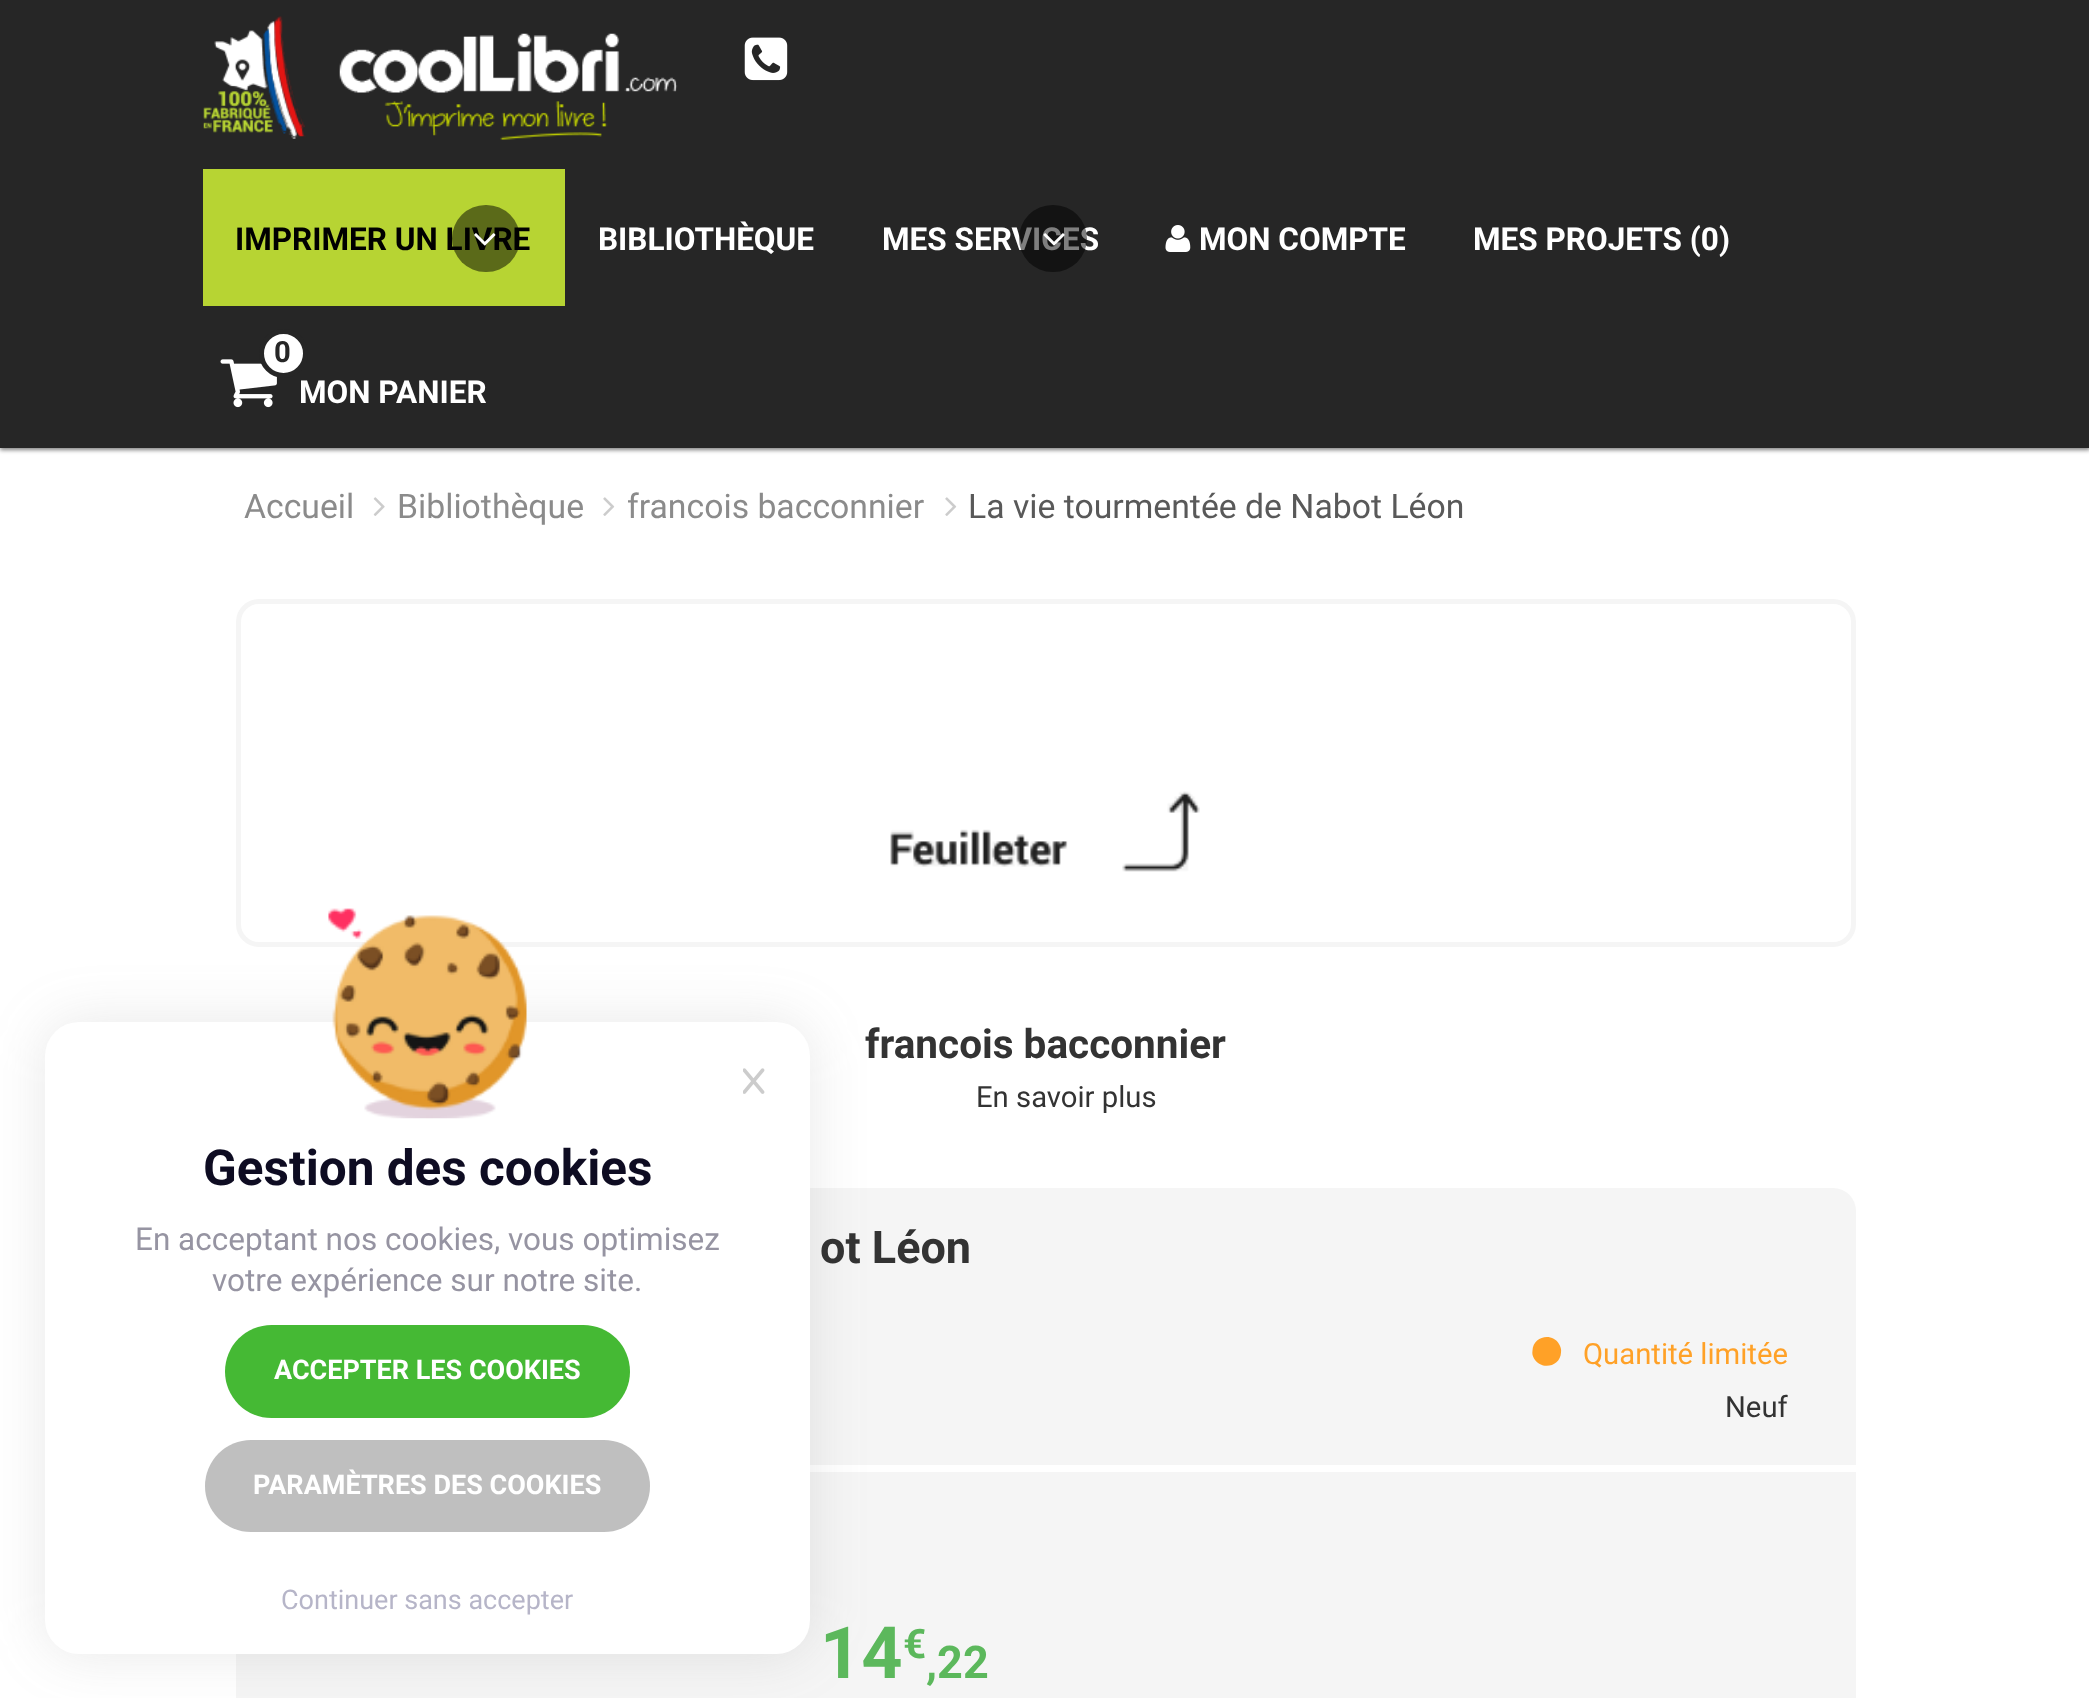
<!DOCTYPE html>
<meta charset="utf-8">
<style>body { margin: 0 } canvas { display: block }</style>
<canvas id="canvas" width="2089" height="1698"></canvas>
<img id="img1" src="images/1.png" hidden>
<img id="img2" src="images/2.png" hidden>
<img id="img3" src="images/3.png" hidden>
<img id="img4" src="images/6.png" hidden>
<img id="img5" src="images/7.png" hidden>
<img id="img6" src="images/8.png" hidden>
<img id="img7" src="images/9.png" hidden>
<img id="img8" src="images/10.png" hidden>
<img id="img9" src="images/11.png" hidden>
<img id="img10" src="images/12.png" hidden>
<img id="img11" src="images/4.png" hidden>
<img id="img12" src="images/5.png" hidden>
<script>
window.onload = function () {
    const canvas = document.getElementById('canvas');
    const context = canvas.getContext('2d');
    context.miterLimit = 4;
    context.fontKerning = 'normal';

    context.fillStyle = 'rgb(255, 255, 255)';
    context.fillRect(0, 0, 2089, 1698);
    context.fillStyle = 'rgba(0, 0, 0, 0.5)';
    context.filter = 'blur(2px)';
    context.beginPath();
    context.rect(0, 2, 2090, 448);
    context.fill();
    context.filter = 'none';
    context.fillStyle = 'rgb(38, 38, 38)';
    context.fillRect(0, 0, 2089, 448);
    context.drawImage(document.getElementById('img1'), 203, 16, 103, 123);
    context.drawImage(document.getElementById('img2'), 339, 33, 339, 107);
    context.drawImage(document.getElementById('img3'), 744, 37, 44, 44);
    context.fillStyle = 'rgb(183, 212, 51)';
    context.fillRect(203, 169, 362, 137);
    context.drawImage(document.getElementById('img4'), 1165, 225, 26, 27);
    context.drawImage(document.getElementById('img5'), 220, 359, 57, 49);
    context.fillStyle = 'rgb(255, 255, 255)';
    context.beginPath();
    context.arc(283.5, 353.5, 22, 0, 2 * Math.PI);
    context.fill();
    context.strokeStyle = 'rgb(38, 38, 38)';
    context.lineWidth = 5;
    context.stroke();
    context.drawImage(document.getElementById('img6'), 373, 497, 12, 19);
    context.drawImage(document.getElementById('img7'), 603, 497, 12, 19);
    context.drawImage(document.getElementById('img7'), 945, 497, 12, 19);
    context.beginPath();
    context.roundRect(238.5, 601.5, 1615, 343, 20.5);
    context.strokeStyle = 'rgb(245, 245, 245)';
    context.stroke();
    context.drawImage(document.getElementById('img8'), 890, 791, 310, 81);
    context.fillStyle = 'rgb(245, 245, 245)';
    context.beginPath();
    context.roundRect(236, 1188, 1620, 277, [23, 23, 0, 0]);
    context.fill();
    context.fillStyle = 'rgb(255, 161, 39)';
    context.beginPath();
    context.moveTo(1559, 1344);
    context.bezierCurveTo(1560.5, 1346.5, 1561.5, 1349.5, 1561, 1352.5);
    context.bezierCurveTo(1560.5, 1366.5, 1541.5, 1371, 1534, 1358.5);
    context.bezierCurveTo(1532.5, 1356, 1532, 1353.5, 1532.5, 1350.5);
    context.bezierCurveTo(1533, 1336.5, 1552, 1332, 1559, 1344);
    context.closePath();
    context.fill();
    context.fillStyle = 'rgb(245, 245, 245)';
    context.fillRect(236, 1472, 1620, 226);
    context.fillStyle = 'rgba(112, 112, 112, 0.16)';
    context.filter = 'blur(28px)';
    context.beginPath();
    context.roundRect(45, 1022, 765, 632, 34);
    context.fill();
    context.filter = 'none';
    context.fillStyle = 'rgb(255, 255, 255)';
    context.beginPath();
    context.roundRect(45, 1022, 765, 632, 34);
    context.fill();
    context.drawImage(document.getElementById('img9'), 328, 908, 199, 211);
    context.drawImage(document.getElementById('img10'), 743, 1068, 22, 26);
    context.fillStyle = 'rgb(69, 185, 52)';
    context.beginPath();
    context.roundRect(225, 1325, 405, 93, 46.5);
    context.fill();
    context.fillStyle = 'rgb(191, 191, 191)';
    context.beginPath();
    context.roundRect(205, 1440, 445, 92, 46);
    context.fill();
    context.font = 'bold 31.5px Roboto';
    context.fillStyle = 'rgb(0, 0, 0)';
    context.fillText('IMPRIMER UN LIVRE', 235, 250);
    context.fillStyle = 'rgba(0, 0, 0, 0.5)';
    context.beginPath();
    context.roundRect(452, 205, 68, 67, 33.5);
    context.fill();
    context.drawImage(document.getElementById('img11'), 474, 233, 22, 13);
    context.fillStyle = 'rgb(255, 255, 255)';
    context.fillText('BIBLIOTHÈQUE', 598, 250);
    context.fillText('MES SERVICES', 882, 250);
    context.fillStyle = 'rgba(0, 0, 0, 0.5)';
    context.beginPath();
    context.roundRect(1019, 205, 68, 67, 33.5);
    context.fill();
    context.drawImage(document.getElementById('img12'), 1043, 233, 22, 13);
    context.fillStyle = 'rgb(255, 255, 255)';
    context.fillText('MON COMPTE', 1199, 250);
    context.fillText('MES PROJETS (0)', 1473, 250);
    context.font = 'bold 29.25px Roboto';
    context.fillStyle = 'rgb(38, 38, 38)';
    context.fillText('0', 274, 362);
    context.font = 'bold 31.5px Roboto';
    context.fillStyle = 'rgb(255, 255, 255)';
    context.fillText('MON PANIER', 299, 403);
    context.font = '33.75px Roboto';
    context.fillStyle = 'rgb(139, 139, 139)';
    context.fillText('Accueil', 244, 518);
    context.fillText('Bibliothèque', 397, 518);
    context.fillText('francois bacconnier', 627, 518);
    context.fillStyle = 'rgb(89, 89, 89)';
    context.fillText('La vie tourmentée de Nabot Léon', 968, 518);
    context.font = 'bold 40.5px Roboto';
    context.fillStyle = 'rgb(51, 51, 51)';
    context.fillText('francois bacconnier', 865, 1058);
    context.font = '29.25px Roboto';
    context.fillText('En savoir plus', 976, 1107);
    context.font = 'bold 45px Roboto';
    context.fillText('ot Léon', 820, 1263);
    context.font = '29.25px Roboto';
    context.fillStyle = 'rgb(255, 161, 39)';
    context.fillText('Quantité limitée', 1583, 1364);
    context.fillStyle = 'rgb(51, 51, 51)';
    context.fillText('Neuf', 1725, 1417);
    context.font = 'bold 72px Roboto';
    context.fillStyle = 'rgb(92, 184, 92)';
    context.fillText('14', 820, 1678);
    context.font = 'bold 40.5px Roboto';
    context.fillText('€', 903, 1658);
    context.font = 'bold 45px Roboto';
    context.fillText(',22', 926, 1678);
    context.font = 'bold 49.5px Roboto';
    context.fillStyle = 'rgb(14, 12, 34)';
    context.fillText('Gestion des cookies', 203, 1185);
    context.font = '31.5px Roboto';
    context.fillStyle = 'rgb(150, 148, 162)';
    context.fillText('En acceptant nos cookies, vous optimisez', 135, 1250);
    context.fillText('votre expérience sur notre site.', 212, 1291);
    context.font = 'bold 27px Roboto';
    context.fillStyle = 'rgb(255, 255, 255)';
    context.fillText('ACCEPTER LES COOKIES', 274, 1379);
    context.fillText('PARAMÈTRES DES COOKIES', 253, 1494);
    context.font = '27px Roboto';
    context.fillStyle = 'rgb(182, 181, 200)';
    context.fillText('Continuer sans accepter', 281, 1609);
};
</script>
